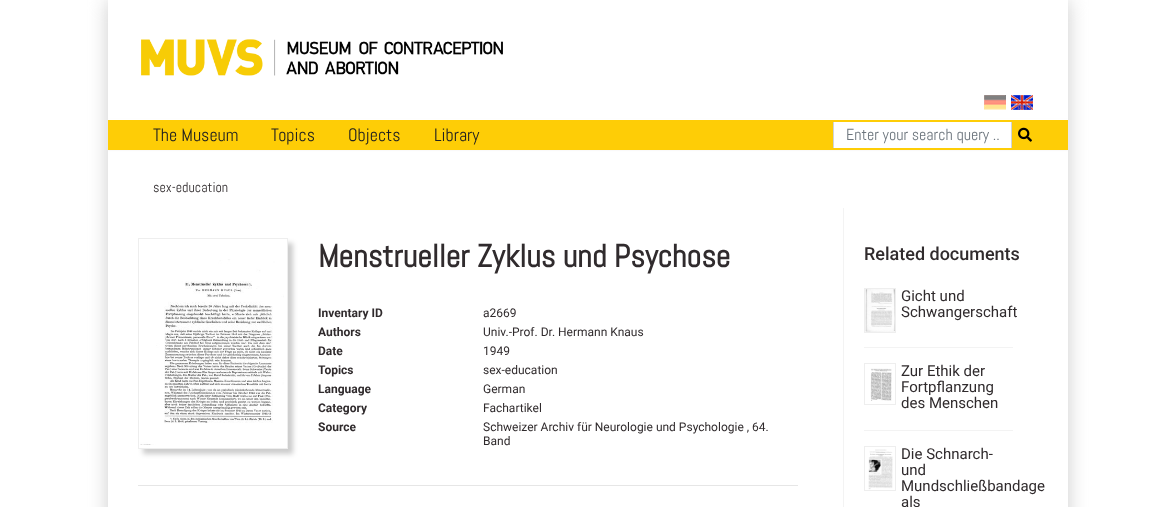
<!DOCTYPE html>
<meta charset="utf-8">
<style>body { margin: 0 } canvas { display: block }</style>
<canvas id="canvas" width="1175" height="507"></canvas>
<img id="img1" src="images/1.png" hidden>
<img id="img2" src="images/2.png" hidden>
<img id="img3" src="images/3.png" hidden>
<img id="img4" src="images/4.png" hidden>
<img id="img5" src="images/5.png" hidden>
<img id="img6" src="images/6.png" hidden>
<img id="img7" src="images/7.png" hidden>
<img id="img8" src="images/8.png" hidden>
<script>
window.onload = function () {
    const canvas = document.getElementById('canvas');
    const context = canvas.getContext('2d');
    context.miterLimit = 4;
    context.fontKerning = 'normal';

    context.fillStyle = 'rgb(255, 255, 255)';
    context.fillRect(0, 0, 1175, 507);
    context.save();
    context.beginPath();
    context.moveTo(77, 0);
    context.lineTo(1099, 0);
    context.lineTo(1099, 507);
    context.lineTo(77, 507);
    context.closePath();
    context.moveTo(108, 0);
    context.lineTo(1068, 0);
    context.lineTo(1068, 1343);
    context.lineTo(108, 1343);
    context.closePath();
    context.clip('evenodd');
    context.fillStyle = 'rgb(204, 204, 204)';
    context.filter = 'blur(10px)';
    context.beginPath();
    context.rect(108, 0, 960, 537);
    context.fill();
    context.filter = 'none';
    context.restore();
    context.fillStyle = 'rgb(239, 237, 237)';
    context.filter = 'blur(1px)';
    context.beginPath();
    context.rect(108, 120, 960, 30);
    context.fill();
    context.filter = 'none';
    context.fillStyle = 'rgb(255, 255, 255)';
    context.fillRect(108, 119, 960, 1);
    context.drawImage(document.getElementById('img1'), 141, 39, 362, 37);
    context.drawImage(document.getElementById('img2'), 984, 95, 22, 15);
    context.drawImage(document.getElementById('img3'), 1011, 95, 22, 15);
    context.fillStyle = 'rgb(254, 205, 6)';
    context.fillRect(108, 120, 960, 30);
    context.fillStyle = 'rgb(255, 255, 255)';
    context.fillRect(834, 122, 177, 26);
    context.fillStyle = 'rgb(206, 212, 218)';
    context.fillRect(1011, 122, 1, 26);
    context.fillRect(833, 122, 1, 26);
    context.drawImage(document.getElementById('img4'), 1018, 127, 14, 15);
    context.save();
    context.beginPath();
    context.moveTo(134, 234);
    context.lineTo(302, 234);
    context.lineTo(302, 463);
    context.lineTo(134, 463);
    context.closePath();
    context.moveTo(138, 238);
    context.lineTo(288, 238);
    context.lineTo(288, 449);
    context.lineTo(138, 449);
    context.closePath();
    context.clip('evenodd');
    context.fillStyle = 'rgba(0, 0, 0, 0.2)';
    context.filter = 'blur(2.5px)';
    context.beginPath();
    context.rect(143, 243, 150, 211);
    context.fill();
    context.filter = 'none';
    context.restore();
    context.strokeStyle = 'rgb(238, 238, 238)';
    context.strokeRect(138.5, 238.5, 149, 210);
    context.drawImage(document.getElementById('img5'), 140, 259, 144, 186);
    context.fillStyle = 'rgb(230, 230, 230)';
    context.fillRect(138, 485, 660, 1);
    context.fillStyle = 'rgb(243, 243, 243)';
    context.fillRect(843, 208, 1, 299);
    context.strokeRect(864.5, 288.5, 31, 44);
    context.drawImage(document.getElementById('img6'), 865, 289, 30, 43);
    context.fillRect(864, 347, 149, 1);
    context.strokeRect(864.5, 363.5, 31, 41);
    context.drawImage(document.getElementById('img7'), 870, 368, 22, 33);
    context.fillRect(864, 430, 149, 1);
    context.strokeRect(864.5, 446.5, 31, 44);
    context.drawImage(document.getElementById('img8'), 868, 449, 25, 41);
    context.save();
    context.beginPath();
    context.rect(1011, 95, 22, 15);
    context.clip();
    context.font = '14px Roboto';
    context.fillStyle = 'rgb(113, 82, 163)';
    context.fillText('en', 1017, 112);
    context.restore();
    context.font = '18px Abel';
    context.fillStyle = 'rgb(33, 33, 33)';
    context.fillText('The Museum', 153, 141);
    context.fillText('Topics', 271, 141);
    context.fillText('Objects', 348, 141);
    context.fillText('Library', 434, 141);
    context.font = '16px Abel';
    context.fillStyle = 'rgb(108, 117, 125)';
    context.fillText('Enter your search query ..', 846, 140);
    context.font = '14px Abel';
    context.fillStyle = 'rgb(48, 43, 45)';
    context.fillText('sex-education', 153, 192);
    context.font = 'bold 32px Abel';
    context.fillText('Menstrueller Zyklus und Psychose', 318, 267);
    context.font = 'bold 12px Roboto';
    context.fillText('Inventary ID', 318, 317);
    context.font = '12px Roboto';
    context.fillText('a2669', 483, 317);
    context.font = 'bold 12px Roboto';
    context.fillText('Authors', 318, 336);
    context.font = '12px Roboto';
    context.fillText('Univ.-Prof. Dr. Hermann Knaus', 483, 336);
    context.font = 'bold 12px Roboto';
    context.fillText('Date', 318, 355);
    context.font = '12px Roboto';
    context.fillText('1949', 483, 355);
    context.font = 'bold 12px Roboto';
    context.fillText('Topics', 318, 374);
    context.font = '12px Roboto';
    context.fillText('sex-education', 483, 374);
    context.font = 'bold 12px Roboto';
    context.fillText('Language', 318, 393);
    context.font = '12px Roboto';
    context.fillText('German', 483, 393);
    context.font = 'bold 12px Roboto';
    context.fillText('Category', 318, 412);
    context.font = '12px Roboto';
    context.fillText('Fachartikel', 483, 412);
    context.font = 'bold 12px Roboto';
    context.fillText('Source', 318, 431);
    context.font = '12px Roboto';
    context.fillText('Schweizer Archiv für Neurologie und Psychologie , 64.', 483, 431);
    context.fillText('Band', 483, 445);
    context.font = '500 18px Roboto';
    context.fillText('Related documents', 864, 260);
    context.font = '15px Roboto';
    context.fillText('Gicht und', 901, 301);
    context.fillText('Schwangerschaft', 901, 317);
    context.fillText('Zur Ethik der', 901, 376);
    context.fillText('Fortpflanzung', 901, 392);
    context.fillText('des Menschen', 901, 408);
    context.fillText('Die Schnarch-', 901, 459);
    context.fillText('und', 901, 475);
    context.fillText('Mundschließbandage', 901, 491);
    context.fillText('als', 901, 507);
};
</script>
